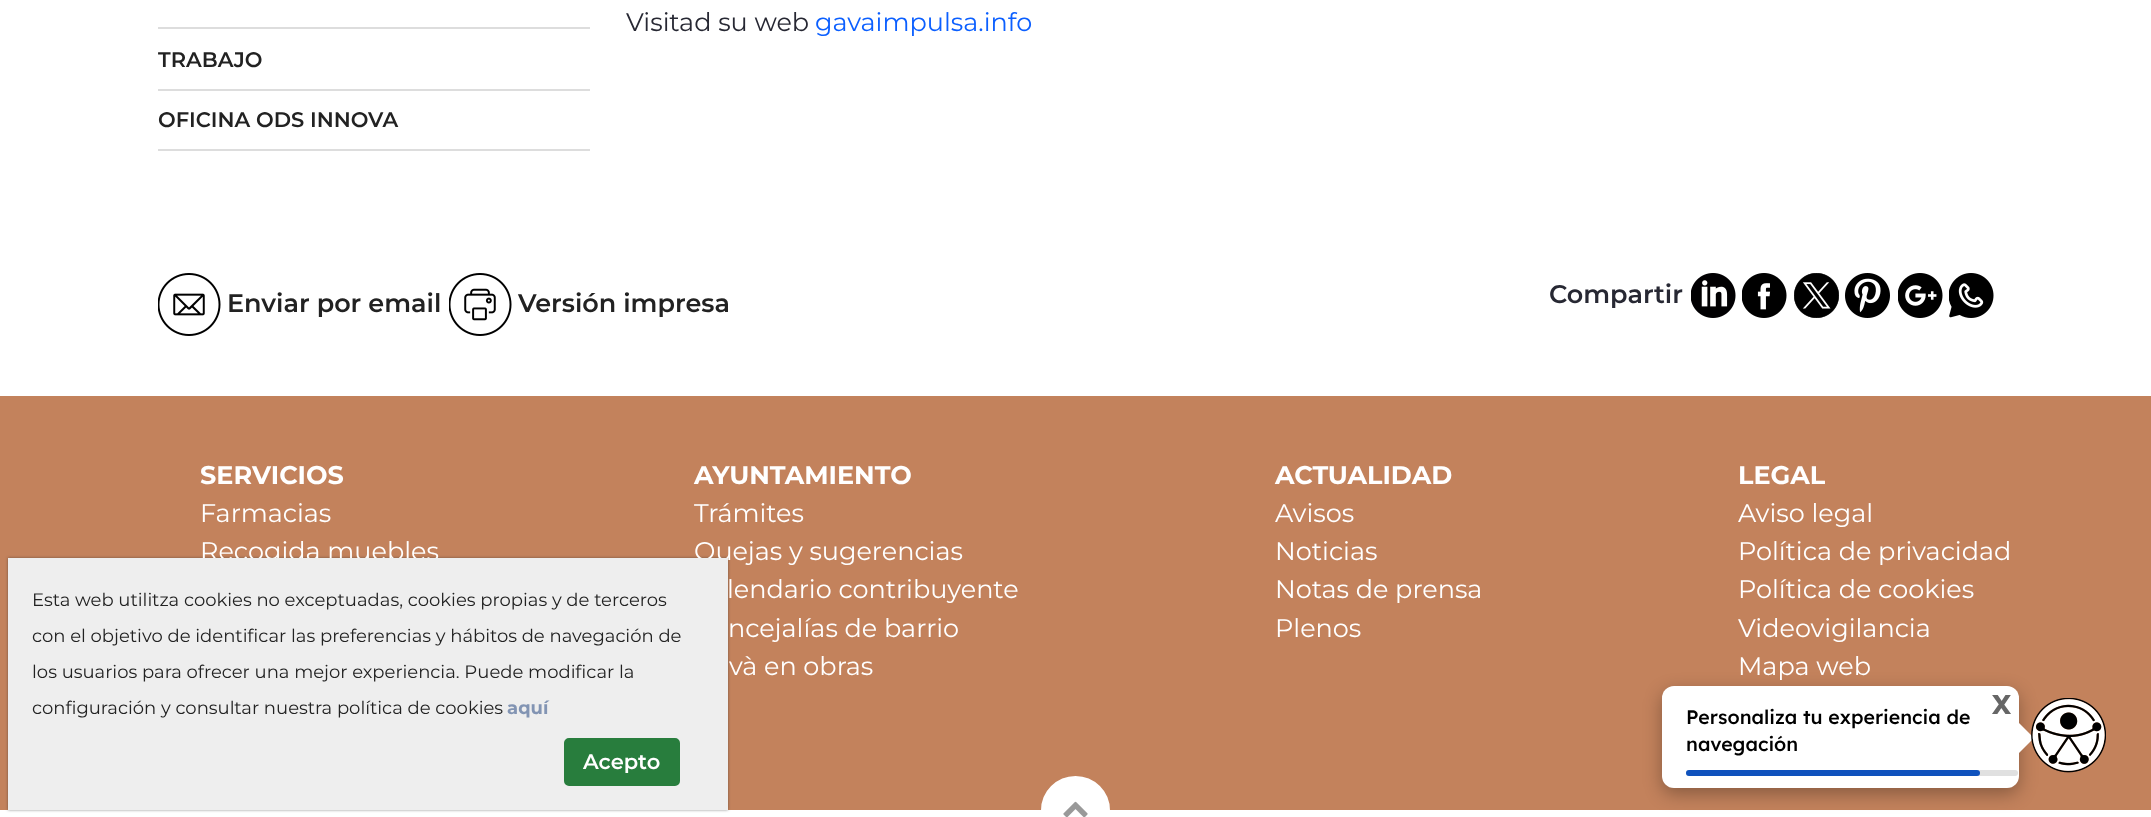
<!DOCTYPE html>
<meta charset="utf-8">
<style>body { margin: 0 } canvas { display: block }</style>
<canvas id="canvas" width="2151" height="817"></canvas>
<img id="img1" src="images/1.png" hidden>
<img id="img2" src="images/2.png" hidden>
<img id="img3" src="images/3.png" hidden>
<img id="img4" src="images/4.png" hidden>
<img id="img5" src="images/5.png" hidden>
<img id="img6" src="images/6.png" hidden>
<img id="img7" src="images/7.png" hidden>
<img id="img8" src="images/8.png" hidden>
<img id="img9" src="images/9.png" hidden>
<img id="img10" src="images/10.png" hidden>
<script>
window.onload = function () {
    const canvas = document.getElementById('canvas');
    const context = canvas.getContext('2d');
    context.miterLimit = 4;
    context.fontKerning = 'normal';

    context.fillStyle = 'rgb(255, 255, 255)';
    context.fillRect(0, 0, 2151, 817);
    context.fillStyle = 'rgb(221, 221, 221)';
    context.fillRect(158, 27, 432, 2);
    context.fillRect(158, 89, 432, 2);
    context.fillRect(158, 149, 432, 2);
    context.drawImage(document.getElementById('img1'), 158, 273, 63, 63);
    context.drawImage(document.getElementById('img2'), 449, 273, 63, 63);
    context.drawImage(document.getElementById('img3'), 1691, 273, 45, 45);
    context.drawImage(document.getElementById('img4'), 1742, 273, 45, 45);
    context.drawImage(document.getElementById('img5'), 1794, 273, 45, 45);
    context.drawImage(document.getElementById('img6'), 1845, 273, 45, 45);
    context.drawImage(document.getElementById('img7'), 1898, 273, 45, 45);
    context.drawImage(document.getElementById('img8'), 1949, 273, 45, 45);
    context.fillStyle = 'rgb(195, 130, 92)';
    context.fillRect(0, 396, 2151, 414);
    context.fillStyle = 'rgb(255, 255, 255)';
    context.beginPath();
    context.arc(1075.5, 810.5, 32, 0, 2 * Math.PI);
    context.fill();
    context.strokeStyle = 'rgb(255, 255, 255)';
    context.lineWidth = 5;
    context.stroke();
    context.drawImage(document.getElementById('img9'), 1063, 801, 25, 16);
    context.fillStyle = 'rgba(34, 34, 34, 0.5)';
    context.filter = 'blur(1.5px)';
    context.beginPath();
    context.rect(8, 558, 720, 252);
    context.fill();
    context.filter = 'none';
    context.fillStyle = 'rgba(0, 0, 0, 0.3)';
    context.filter = 'blur(9px)';
    context.beginPath();
    context.roundRect(1662, 692, 357, 102, 12);
    context.fill();
    context.filter = 'none';
    context.fillStyle = 'rgb(255, 255, 255)';
    context.beginPath();
    context.roundRect(1662, 686, 357, 102, 12);
    context.fill();
    context.beginPath();
    context.moveTo(2019, 753);
    context.lineTo(2019, 723);
    context.lineTo(2034, 738);
    context.closePath();
    context.fill();
    context.fillStyle = 'rgb(224, 224, 224)';
    context.beginPath();
    context.roundRect(1686, 770, 332, 6, 3);
    context.fill();
    context.fillStyle = 'rgb(15, 82, 189)';
    context.beginPath();
    context.roundRect(1686, 770, 294, 6, 3);
    context.fill();
    context.drawImage(document.getElementById('img10'), 2031, 698, 75, 75);
    context.font = '25.5px Montserrat';
    context.fillStyle = 'rgb(39, 40, 51)';
    context.fillText('Visitad su web', 626, 31);
    context.fillStyle = 'rgb(11, 95, 255)';
    context.fillText('gavaimpulsa.info', 815, 31);
    context.font = '600 21px Montserrat';
    context.fillStyle = 'rgb(34, 34, 34)';
    context.fillText('TRABAJO', 158, 67);
    context.fillText('OFICINA ODS INNOVA', 158, 127);
    context.font = '600 25.5px Montserrat';
    context.fillText('Enviar por email', 227, 312);
    context.fillText('Versión impresa', 518, 312);
    context.fillStyle = 'rgb(39, 40, 51)';
    context.fillText('Compartir', 1549, 303);
    context.font = 'bold 25.5px Montserrat';
    context.fillStyle = 'rgb(255, 255, 255)';
    context.fillText('SERVICIOS', 200, 484);
    context.font = '25.5px Montserrat';
    context.fillText('Farmacias', 200, 522);
    context.fillText('Recogida muebles', 200, 560);
    context.font = 'bold 25.5px Montserrat';
    context.fillText('AYUNTAMIENTO', 694, 484);
    context.font = '25.5px Montserrat';
    context.fillText('Trámites', 694, 522);
    context.fillText('Quejas y sugerencias', 694, 560);
    context.fillText('lendario contribuyente', 727, 598);
    context.fillText('ncejalías de barrio', 728, 637);
    context.fillText('và en obras', 729, 675);
    context.font = 'bold 25.5px Montserrat';
    context.fillText('ACTUALIDAD', 1275, 484);
    context.font = '25.5px Montserrat';
    context.fillText('Avisos', 1275, 522);
    context.fillText('Noticias', 1275, 560);
    context.fillText('Notas de prensa', 1275, 598);
    context.fillText('Plenos', 1275, 637);
    context.font = 'bold 25.5px Montserrat';
    context.fillText('LEGAL', 1738, 484);
    context.font = '25.5px Montserrat';
    context.fillText('Aviso legal', 1738, 522);
    context.fillText('Política de privacidad', 1738, 560);
    context.fillText('Política de cookies', 1738, 598);
    context.fillText('Videovigilancia', 1738, 637);
    context.fillText('Mapa web', 1738, 675);
    context.fillStyle = 'rgb(238, 238, 238)';
    context.fillRect(8, 558, 720, 252);
    context.font = '18px Montserrat';
    context.fillStyle = 'rgb(34, 34, 34)';
    context.fillText('Esta web utilitza cookies no exceptuadas, cookies propias y de terceros', 32, 606);
    context.fillText('con el objetivo de identificar las preferencias y hábitos de navegación de', 32, 642);
    context.fillText('los usuarios para ofrecer una mejor experiencia. Puede modificar la', 32, 678);
    context.fillText('configuración y consultar nuestra política de cookies', 32, 714);
    context.font = 'bold 18px Montserrat';
    context.fillStyle = 'rgb(130, 148, 179)';
    context.fillText('aquí', 507, 714);
    context.fillStyle = 'rgb(40, 125, 61)';
    context.beginPath();
    context.roundRect(565, 739, 114, 46, 4);
    context.fill();
    context.strokeStyle = 'rgb(40, 125, 61)';
    context.lineWidth = 2;
    context.stroke();
    context.font = '600 21px Montserrat';
    context.fillStyle = 'rgb(255, 255, 255)';
    context.fillText('Acepto', 583, 769);
    context.font = 'bold 27px Lexend';
    context.fillStyle = 'rgb(102, 102, 102)';
    context.fillText('X', 1992, 714);
    context.font = '500 19.5px Lexend';
    context.fillStyle = 'rgb(0, 0, 0)';
    context.fillText('Personaliza tu experiencia de', 1686, 724);
    context.fillText('navegación', 1686, 751);
};
</script>
